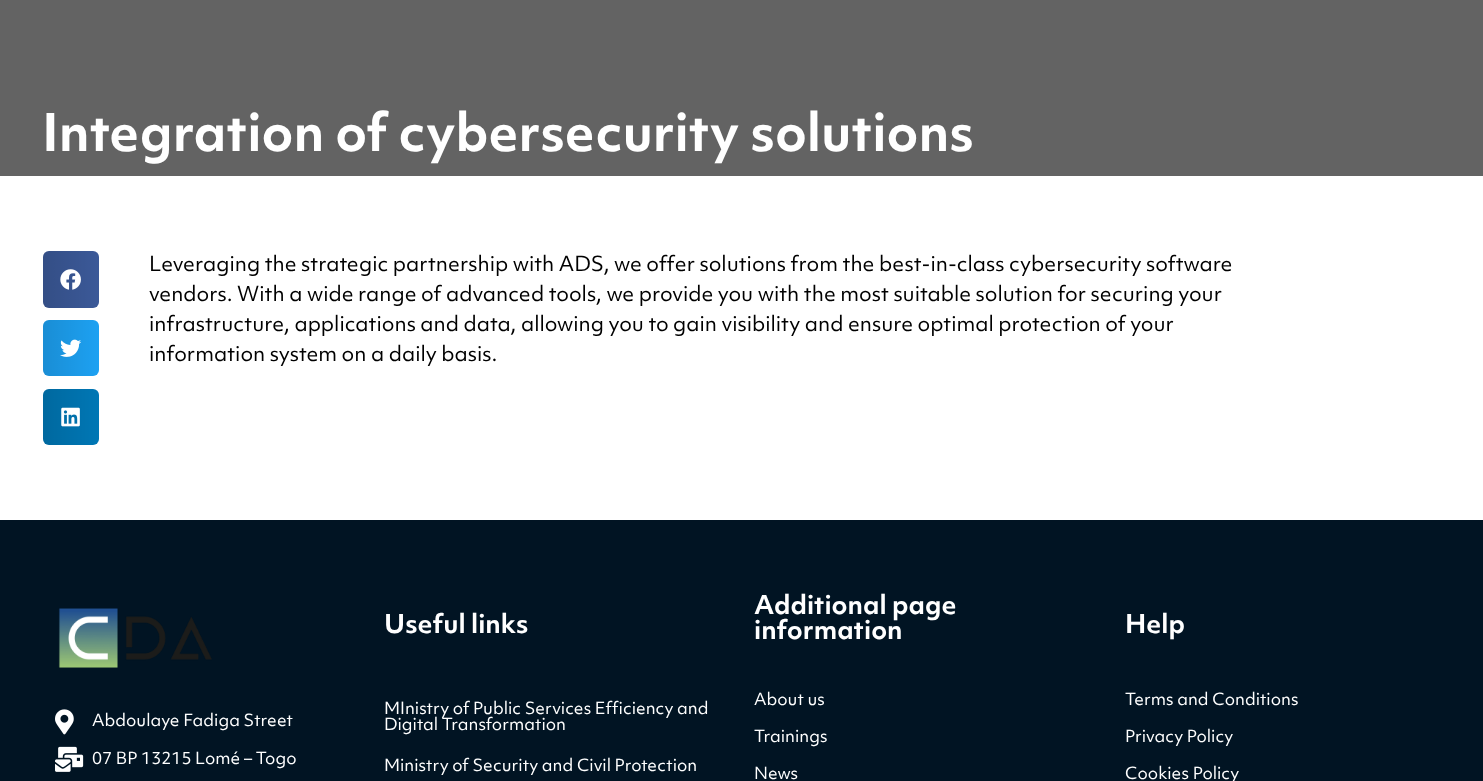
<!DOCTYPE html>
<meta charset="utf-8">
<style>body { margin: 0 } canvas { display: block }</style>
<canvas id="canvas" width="1483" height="781"></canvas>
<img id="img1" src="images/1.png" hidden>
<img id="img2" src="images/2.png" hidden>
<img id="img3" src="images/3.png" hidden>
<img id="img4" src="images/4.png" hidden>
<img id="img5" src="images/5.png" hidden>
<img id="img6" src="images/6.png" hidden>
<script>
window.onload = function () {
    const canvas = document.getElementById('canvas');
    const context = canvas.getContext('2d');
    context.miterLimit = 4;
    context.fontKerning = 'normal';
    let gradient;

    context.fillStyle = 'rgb(255, 255, 255)';
    context.fillRect(0, 0, 1483, 781);
    context.fillStyle = 'rgb(99, 99, 99)';
    context.fillRect(0, 0, 1483, 176);
    context.fillStyle = 'rgb(59, 89, 152)';
    context.beginPath();
    context.roundRect(43, 251, 56, 57, 6);
    context.fill();
    gradient = context.createLinearGradient(43, 279, 99, 279);
    gradient.addColorStop(0, 'rgba(0, 0, 0, 0.12)');
    gradient.addColorStop(1, 'rgba(0, 0, 0, 0)');
    context.fillStyle = gradient;
    context.beginPath();
    context.roundRect(43, 251, 56, 57, 6);
    context.fill();
    context.drawImage(document.getElementById('img1'), 60, 269, 21, 21);
    context.fillStyle = 'rgb(29, 161, 242)';
    context.beginPath();
    context.roundRect(43, 320, 56, 56, 6);
    context.fill();
    gradient = context.createLinearGradient(43, 348, 99, 348);
    gradient.addColorStop(0, 'rgba(0, 0, 0, 0.12)');
    gradient.addColorStop(1, 'rgba(0, 0, 0, 0)');
    context.fillStyle = gradient;
    context.beginPath();
    context.roundRect(43, 320, 56, 56, 6);
    context.fill();
    context.drawImage(document.getElementById('img2'), 60, 339, 22, 18);
    context.fillStyle = 'rgb(0, 119, 181)';
    context.beginPath();
    context.roundRect(43, 389, 56, 56, 6);
    context.fill();
    gradient = context.createLinearGradient(43, 417, 99, 417);
    gradient.addColorStop(0, 'rgba(0, 0, 0, 0.12)');
    gradient.addColorStop(1, 'rgba(0, 0, 0, 0)');
    context.fillStyle = gradient;
    context.beginPath();
    context.roundRect(43, 389, 56, 56, 6);
    context.fill();
    context.drawImage(document.getElementById('img3'), 61, 407, 19, 20);
    context.fillStyle = 'rgb(1, 20, 35)';
    context.fillRect(0, 520, 1483, 261);
    context.drawImage(document.getElementById('img4'), 58, 608, 154, 60);
    context.drawImage(document.getElementById('img5'), 55, 709, 19, 26);
    context.drawImage(document.getElementById('img6'), 55, 746, 29, 26);
    context.font = 'bold 50px "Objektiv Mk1"';
    context.fillStyle = 'rgb(255, 255, 255)';
    context.fillText('Integration of cybersecurity solutions', 42, 151);
    context.font = '20px "Objektiv Mk1"';
    context.fillStyle = 'rgb(0, 0, 0)';
    context.fillText('Leveraging the strategic partnership with ADS, we offer solutions from the best-in-class cybersecurity software', 149, 271);
    context.fillText('vendors. With a wide range of advanced tools, we provide you with the most suitable solution for securing your', 149, 301);
    context.fillText('infrastructure, applications and data, allowing you to gain visibility and ensure optimal protection of your', 149, 331);
    context.fillText('information system on a daily basis.', 149, 361);
    context.font = '16.25px "Objektiv Mk1"';
    context.fillStyle = 'rgb(255, 255, 255)';
    context.fillText('Abdoulaye Fadiga Street', 92, 726);
    context.fillText('07 BP 13215 Lomé – Togo', 92, 764);
    context.font = 'bold 25px "Objektiv Mk1"';
    context.fillText('Useful links', 384, 633);
    context.font = '16.25px "Objektiv Mk1"';
    context.fillText('MInistry of Public Services Efficiency and', 384, 714);
    context.fillText('Digital Transformation', 384, 730);
    context.fillText('Ministry of Security and Civil Protection', 384, 771);
    context.font = 'bold 25px "Objektiv Mk1"';
    context.fillText('Additional page', 754, 614);
    context.fillText('information', 754, 639);
    context.font = '16.25px "Objektiv Mk1"';
    context.fillText('About us', 754, 705);
    context.fillText('Trainings', 754, 742);
    context.fillText('News', 754, 779);
    context.font = 'bold 25px "Objektiv Mk1"';
    context.fillText('Help', 1125, 633);
    context.font = '16.25px "Objektiv Mk1"';
    context.fillText('Terms and Conditions', 1125, 705);
    context.fillText('Privacy Policy', 1125, 742);
    context.fillText('Cookies Policy', 1125, 779);
};
</script>
